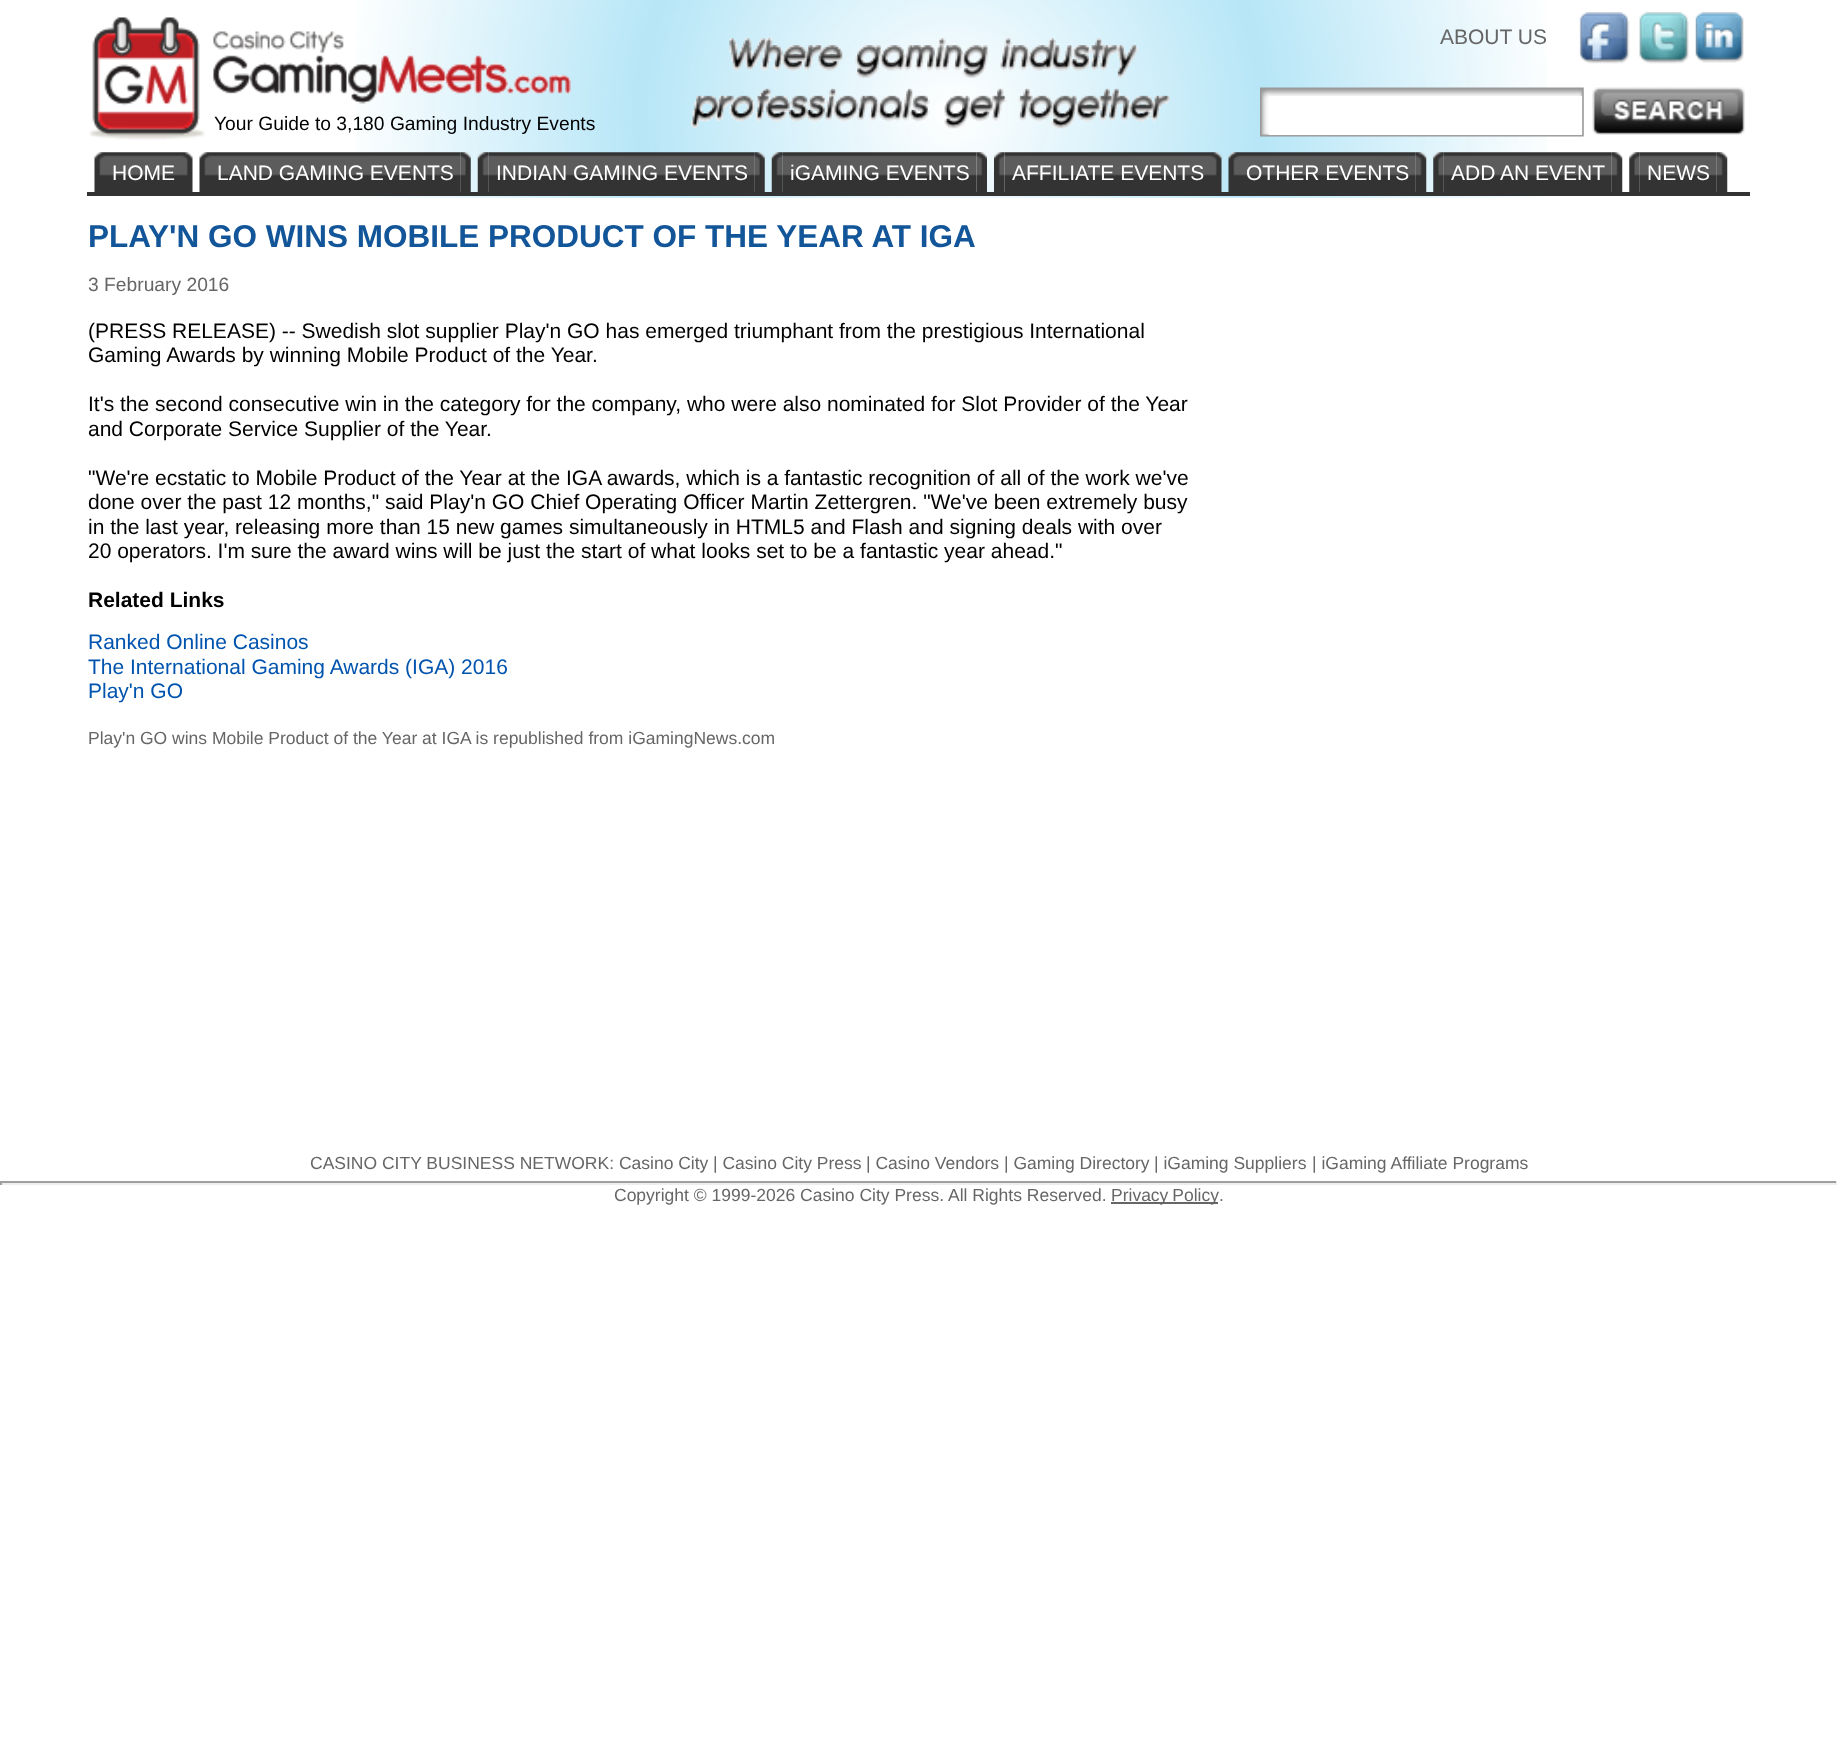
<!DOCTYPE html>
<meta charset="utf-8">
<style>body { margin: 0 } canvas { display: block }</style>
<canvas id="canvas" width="1837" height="1758"></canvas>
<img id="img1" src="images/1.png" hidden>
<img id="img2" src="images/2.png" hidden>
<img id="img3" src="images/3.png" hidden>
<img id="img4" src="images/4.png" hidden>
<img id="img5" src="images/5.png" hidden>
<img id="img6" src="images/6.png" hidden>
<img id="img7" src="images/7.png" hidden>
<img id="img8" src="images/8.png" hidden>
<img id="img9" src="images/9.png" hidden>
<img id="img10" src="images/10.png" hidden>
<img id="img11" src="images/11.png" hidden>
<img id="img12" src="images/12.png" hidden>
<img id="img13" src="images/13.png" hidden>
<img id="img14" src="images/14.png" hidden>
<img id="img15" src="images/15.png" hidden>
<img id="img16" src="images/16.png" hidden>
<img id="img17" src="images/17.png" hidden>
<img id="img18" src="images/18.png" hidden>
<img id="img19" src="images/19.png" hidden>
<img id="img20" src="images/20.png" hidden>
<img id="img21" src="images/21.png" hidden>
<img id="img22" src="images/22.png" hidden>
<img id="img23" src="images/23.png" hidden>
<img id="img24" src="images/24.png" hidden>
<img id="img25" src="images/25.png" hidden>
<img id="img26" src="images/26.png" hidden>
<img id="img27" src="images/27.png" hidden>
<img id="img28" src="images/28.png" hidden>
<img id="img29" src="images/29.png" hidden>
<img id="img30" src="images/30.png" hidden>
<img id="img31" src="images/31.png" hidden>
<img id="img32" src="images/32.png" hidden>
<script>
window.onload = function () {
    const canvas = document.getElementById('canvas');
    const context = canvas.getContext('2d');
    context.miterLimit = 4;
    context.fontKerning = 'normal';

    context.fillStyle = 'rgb(255, 255, 255)';
    context.fillRect(0, 0, 1837, 1758);
    context.drawImage(document.getElementById('img1'), 356, 0, 1191, 198);
    context.drawImage(document.getElementById('img2'), 89, 17, 482, 123);
    context.drawImage(document.getElementById('img3'), 691, 38, 479, 91);
    context.drawImage(document.getElementById('img4'), 691, 38, 479, 91);
    context.drawImage(document.getElementById('img5'), 1579, 12, 51, 52);
    context.drawImage(document.getElementById('img6'), 1639, 12, 50, 52);
    context.drawImage(document.getElementById('img7'), 1695, 12, 49, 51);
    context.drawImage(document.getElementById('img8'), 1260, 87, 324, 50);
    context.drawImage(document.getElementById('img9'), 1592, 87, 153, 48);
    context.fillRect(1269, 96, 313, 39);
    context.drawImage(document.getElementById('img10'), 94, 152, 11, 40);
    context.drawImage(document.getElementById('img11'), 105, 152, 77, 40);
    context.drawImage(document.getElementById('img12'), 182, 152, 11, 40);
    context.drawImage(document.getElementById('img10'), 199, 152, 11, 40);
    context.drawImage(document.getElementById('img13'), 210, 152, 251, 40);
    context.drawImage(document.getElementById('img14'), 460, 152, 11, 40);
    context.drawImage(document.getElementById('img15'), 477, 152, 12, 40);
    context.drawImage(document.getElementById('img16'), 488, 152, 267, 40);
    context.drawImage(document.getElementById('img17'), 754, 152, 11, 40);
    context.drawImage(document.getElementById('img18'), 771, 152, 12, 40);
    context.drawImage(document.getElementById('img19'), 782, 152, 195, 40);
    context.drawImage(document.getElementById('img20'), 976, 152, 11, 40);
    context.drawImage(document.getElementById('img21'), 994, 152, 11, 40);
    context.drawImage(document.getElementById('img22'), 1004, 152, 207, 40);
    context.drawImage(document.getElementById('img23'), 1211, 152, 11, 40);
    context.drawImage(document.getElementById('img24'), 1228, 152, 11, 40);
    context.drawImage(document.getElementById('img25'), 1239, 152, 177, 40);
    context.drawImage(document.getElementById('img26'), 1415, 152, 12, 40);
    context.drawImage(document.getElementById('img27'), 1433, 152, 11, 40);
    context.drawImage(document.getElementById('img28'), 1443, 152, 169, 40);
    context.drawImage(document.getElementById('img29'), 1611, 152, 12, 40);
    context.drawImage(document.getElementById('img30'), 1629, 152, 11, 40);
    context.drawImage(document.getElementById('img31'), 1639, 152, 78, 40);
    context.drawImage(document.getElementById('img32'), 1716, 152, 12, 40);
    context.fillStyle = 'rgb(51, 51, 51)';
    context.fillRect(87, 192, 1663, 4);
    context.fillStyle = 'rgb(159, 159, 159)';
    context.fillRect(0, 1181, 1837, 2);
    context.fillStyle = 'rgb(238, 238, 238)';
    context.fillRect(1836, 1181, 1, 4);
    context.fillRect(0, 1183, 1837, 2);
    context.fillStyle = 'rgb(159, 159, 159)';
    context.fillRect(0, 1181, 2, 4);
    context.fillStyle = 'rgb(102, 102, 102)';
    context.fillRect(1111, 1202, 107, 2);
    context.font = '21px Liberation Sans';
    context.fillText('ABOUT US', 1440, 44);
    context.font = '19.25px Liberation Sans';
    context.fillStyle = 'rgb(0, 0, 0)';
    context.fillText('Your Guide to 3,180 Gaming Industry Events', 214, 130);
    context.font = '21px Liberation Sans';
    context.fillStyle = 'rgb(255, 255, 255)';
    context.fillText('HOME', 112, 180);
    context.fillText('LAND GAMING EVENTS', 217, 180);
    context.fillText('INDIAN GAMING EVENTS', 496, 180);
    context.fillText('iGAMING EVENTS', 790, 180);
    context.fillText('AFFILIATE EVENTS', 1012, 180);
    context.fillText('OTHER EVENTS', 1246, 180);
    context.fillText('ADD AN EVENT', 1451, 180);
    context.fillText('NEWS', 1647, 180);
    context.font = 'bold 31.5px Liberation Sans';
    context.fillStyle = 'rgb(18, 86, 153)';
    context.fillText('PLAY\'N GO WINS MOBILE PRODUCT OF THE YEAR AT IGA', 88, 247);
    context.font = '19.25px Liberation Sans';
    context.fillStyle = 'rgb(102, 102, 102)';
    context.fillText('3 February 2016', 88, 291);
    context.font = '21px Liberation Sans';
    context.fillStyle = 'rgb(0, 0, 0)';
    context.fillText('(PRESS RELEASE) -- Swedish slot supplier Play\'n GO has emerged triumphant from the prestigious International', 88, 338);
    context.fillText('Gaming Awards by winning Mobile Product of the Year.', 88, 362);
    context.fillText('It\'s the second consecutive win in the category for the company, who were also nominated for Slot Provider of the Year', 88, 411);
    context.fillText('and Corporate Service Supplier of the Year.', 88, 436);
    context.fillText('"We\'re ecstatic to Mobile Product of the Year at the IGA awards, which is a fantastic recognition of all of the work we\'ve', 88, 485);
    context.fillText('done over the past 12 months," said Play\'n GO Chief Operating Officer Martin Zettergren. "We\'ve been extremely busy', 88, 509);
    context.fillText('in the last year, releasing more than 15 new games simultaneously in HTML5 and Flash and signing deals with over', 88, 534);
    context.fillText('20 operators. I\'m sure the award wins will be just the start of what looks set to be a fantastic year ahead."', 88, 558);
    context.font = 'bold 21px Liberation Sans';
    context.fillText('Related Links', 88, 607);
    context.font = '21px Liberation Sans';
    context.fillStyle = 'rgb(0, 84, 174)';
    context.fillText('Ranked Online Casinos', 88, 649);
    context.fillText('The International Gaming Awards (IGA) 2016', 88, 674);
    context.fillText('Play\'n GO', 88, 698);
    context.font = '17.5px Liberation Sans';
    context.fillStyle = 'rgb(102, 102, 102)';
    context.fillText('Play\'n GO wins Mobile Product of the Year at IGA is republished from iGamingNews.com', 88, 744);
    context.fillText('CASINO CITY BUSINESS NETWORK: Casino City', 310, 1169);
    context.fillText('| Casino City Press', 713, 1169);
    context.fillText('| Casino Vendors', 866, 1169);
    context.fillText('| Gaming Directory', 1004, 1169);
    context.fillText('| iGaming Suppliers', 1154, 1169);
    context.fillText('| iGaming Affiliate Programs', 1312, 1169);
    context.fillText('Copyright © 1999-2026 Casino City Press.', 614, 1201);
    context.fillText('All Rights Reserved.', 948, 1201);
    context.wordSpacing = '-1px';
    context.fillText('Privacy Policy', 1111, 1201);
    context.wordSpacing = '0px';
    context.fillText('.', 1219, 1201);
};
</script>
